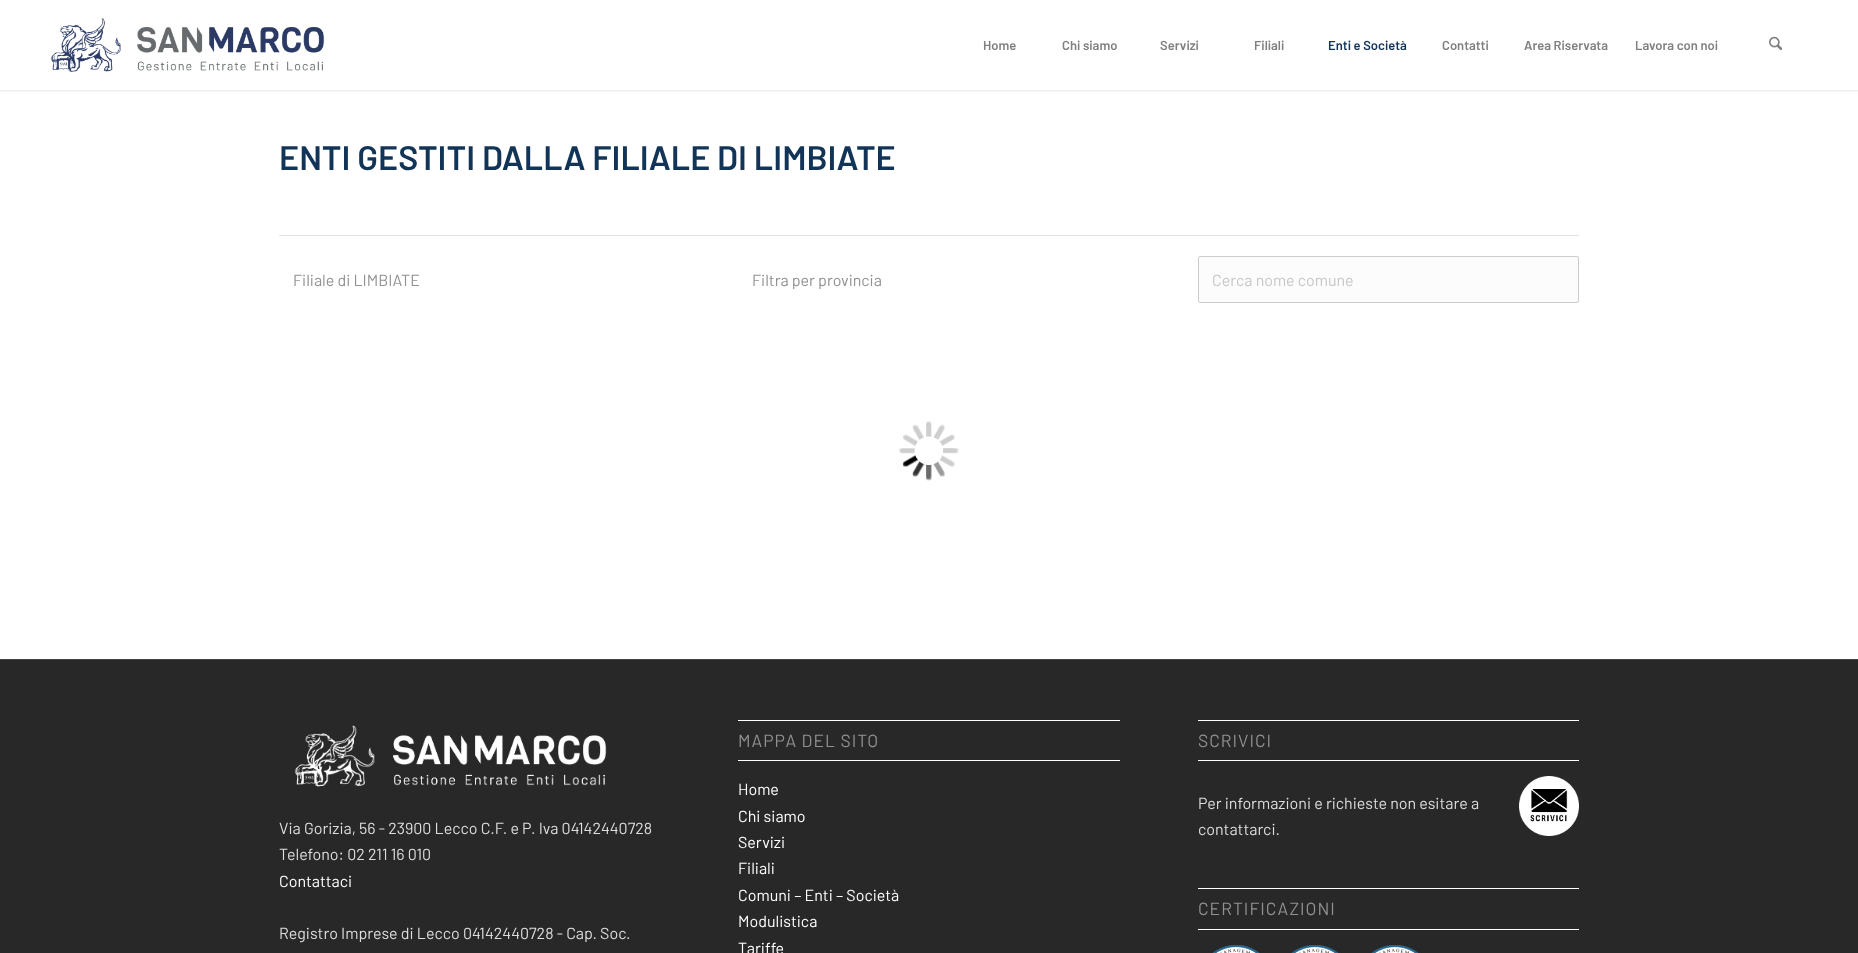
<!DOCTYPE html>
<meta charset="utf-8">
<style>body { margin: 0 } canvas { display: block }</style>
<canvas id="canvas" width="1858" height="953"></canvas>
<img id="img1" src="images/1.png" hidden>
<img id="img2" src="images/2.png" hidden>
<img id="img3" src="images/3.png" hidden>
<img id="img4" src="images/4.png" hidden>
<img id="img5" src="images/5.png" hidden>
<img id="img6" src="images/6.png" hidden>
<script>
window.onload = function () {
    const canvas = document.getElementById('canvas');
    const context = canvas.getContext('2d');
    context.miterLimit = 4;
    context.fontKerning = 'normal';

    context.fillStyle = 'rgb(255, 255, 255)';
    context.fillRect(0, 0, 1858, 953);
    context.save();
    context.beginPath();
    context.rect(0, 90, 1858, 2);
    context.clip();
    context.fillStyle = 'rgba(0, 0, 0, 0.1)';
    context.filter = 'blur(1px)';
    context.beginPath();
    context.rect(-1, -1, 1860, 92);
    context.fill();
    context.filter = 'none';
    context.restore();
    context.drawImage(document.getElementById('img1'), 51, 18, 274, 54);
    context.drawImage(document.getElementById('img2'), 1769, 36, 13, 15);
    context.fillStyle = 'rgb(225, 225, 225)';
    context.fillRect(279, 235, 1300, 1);
    context.fillStyle = 'rgb(252, 252, 252)';
    context.beginPath();
    context.roundRect(1198.5, 256.5, 380, 46, 1.5);
    context.fill();
    context.strokeStyle = 'rgb(204, 204, 204)';
    context.stroke();
    context.drawImage(document.getElementById('img3'), 899, 421, 60, 60);
    context.fillStyle = 'rgb(40, 40, 40)';
    context.fillRect(0, 660, 1858, 293);
    context.fillStyle = 'rgb(68, 68, 68)';
    context.fillRect(0, 659, 1858, 1);
    context.drawImage(document.getElementById('img4'), 294, 725, 313, 62);
    context.fillStyle = 'rgb(255, 255, 255)';
    context.fillRect(738, 720, 382, 1);
    context.fillRect(738, 760, 382, 1);
    context.fillRect(1198, 720, 381, 1);
    context.fillRect(1198, 760, 381, 1);
    context.drawImage(document.getElementById('img5'), 1519, 776, 60, 60);
    context.fillRect(1198, 888, 381, 1);
    context.fillRect(1198, 929, 381, 1);
    context.drawImage(document.getElementById('img6'), 1212, 945, 48, 8);
    context.drawImage(document.getElementById('img6'), 1291, 945, 48, 8);
    context.drawImage(document.getElementById('img6'), 1371, 945, 48, 8);
    context.font = '600 13px Barlow';
    context.fillStyle = 'rgb(128, 128, 128)';
    context.fillText('Home', 983, 50);
    context.fillText('Chi siamo', 1062, 50);
    context.fillText('Servizi', 1160, 50);
    context.fillText('Filiali', 1254, 50);
    context.fillStyle = 'rgb(18, 52, 86)';
    context.fillText('Enti e Società', 1328, 50);
    context.fillStyle = 'rgb(128, 128, 128)';
    context.fillText('Contatti', 1442, 50);
    context.fillText('Area Riservata', 1524, 50);
    context.fillText('Lavora con noi', 1635, 50);
    context.font = '600 34px Barlow';
    context.fillStyle = 'rgb(18, 52, 86)';
    context.fillText('ENTI GESTITI DALLA FILIALE DI LIMBIATE', 279, 170);
    context.font = '16px Barlow';
    context.fillStyle = 'rgb(145, 145, 145)';
    context.fillText('Filiale di LIMBIATE', 293, 286);
    context.fillText('Filtra per provincia', 752, 286);
    context.fillStyle = 'rgb(199, 199, 199)';
    context.fillText('Cerca nome comune', 1212, 286);
    context.fillStyle = 'rgb(221, 221, 221)';
    context.fillText('Via Gorizia, 56 - 23900 Lecco C.F. e P. Iva 04142440728', 279, 834);
    context.fillText('Telefono: 02 211 16 010', 279, 860);
    context.fillStyle = 'rgb(255, 255, 255)';
    context.fillText('Contattaci', 279, 887);
    context.fillStyle = 'rgb(221, 221, 221)';
    context.fillText('Registro Imprese di Lecco 04142440728 - Cap. Soc.', 279, 939);
    context.letterSpacing = '1px';
    context.font = '17.5px Barlow';
    context.fillStyle = 'rgb(145, 145, 145)';
    context.fillText('MAPPA DEL SITO', 738, 747);
    context.letterSpacing = '0px';
    context.font = '16px Barlow';
    context.fillStyle = 'rgb(255, 255, 255)';
    context.fillText('Home', 738, 795);
    context.fillText('Chi siamo', 738, 822);
    context.fillText('Servizi', 738, 848);
    context.fillText('Filiali', 738, 874);
    context.fillText('Comuni – Enti – Società', 738, 901);
    context.fillText('Modulistica', 738, 927);
    context.fillText('Tariffe', 738, 954);
    context.letterSpacing = '1px';
    context.font = '17.5px Barlow';
    context.fillStyle = 'rgb(145, 145, 145)';
    context.fillText('SCRIVICI', 1198, 747);
    context.letterSpacing = '0px';
    context.font = '16px Barlow';
    context.fillStyle = 'rgb(221, 221, 221)';
    context.fillText('Per informazioni e richieste non esitare a', 1198, 809);
    context.fillText('contattarci.', 1198, 835);
    context.letterSpacing = '1px';
    context.font = '17.5px Barlow';
    context.fillStyle = 'rgb(145, 145, 145)';
    context.fillText('CERTIFICAZIONI', 1198, 915);
};
</script>
